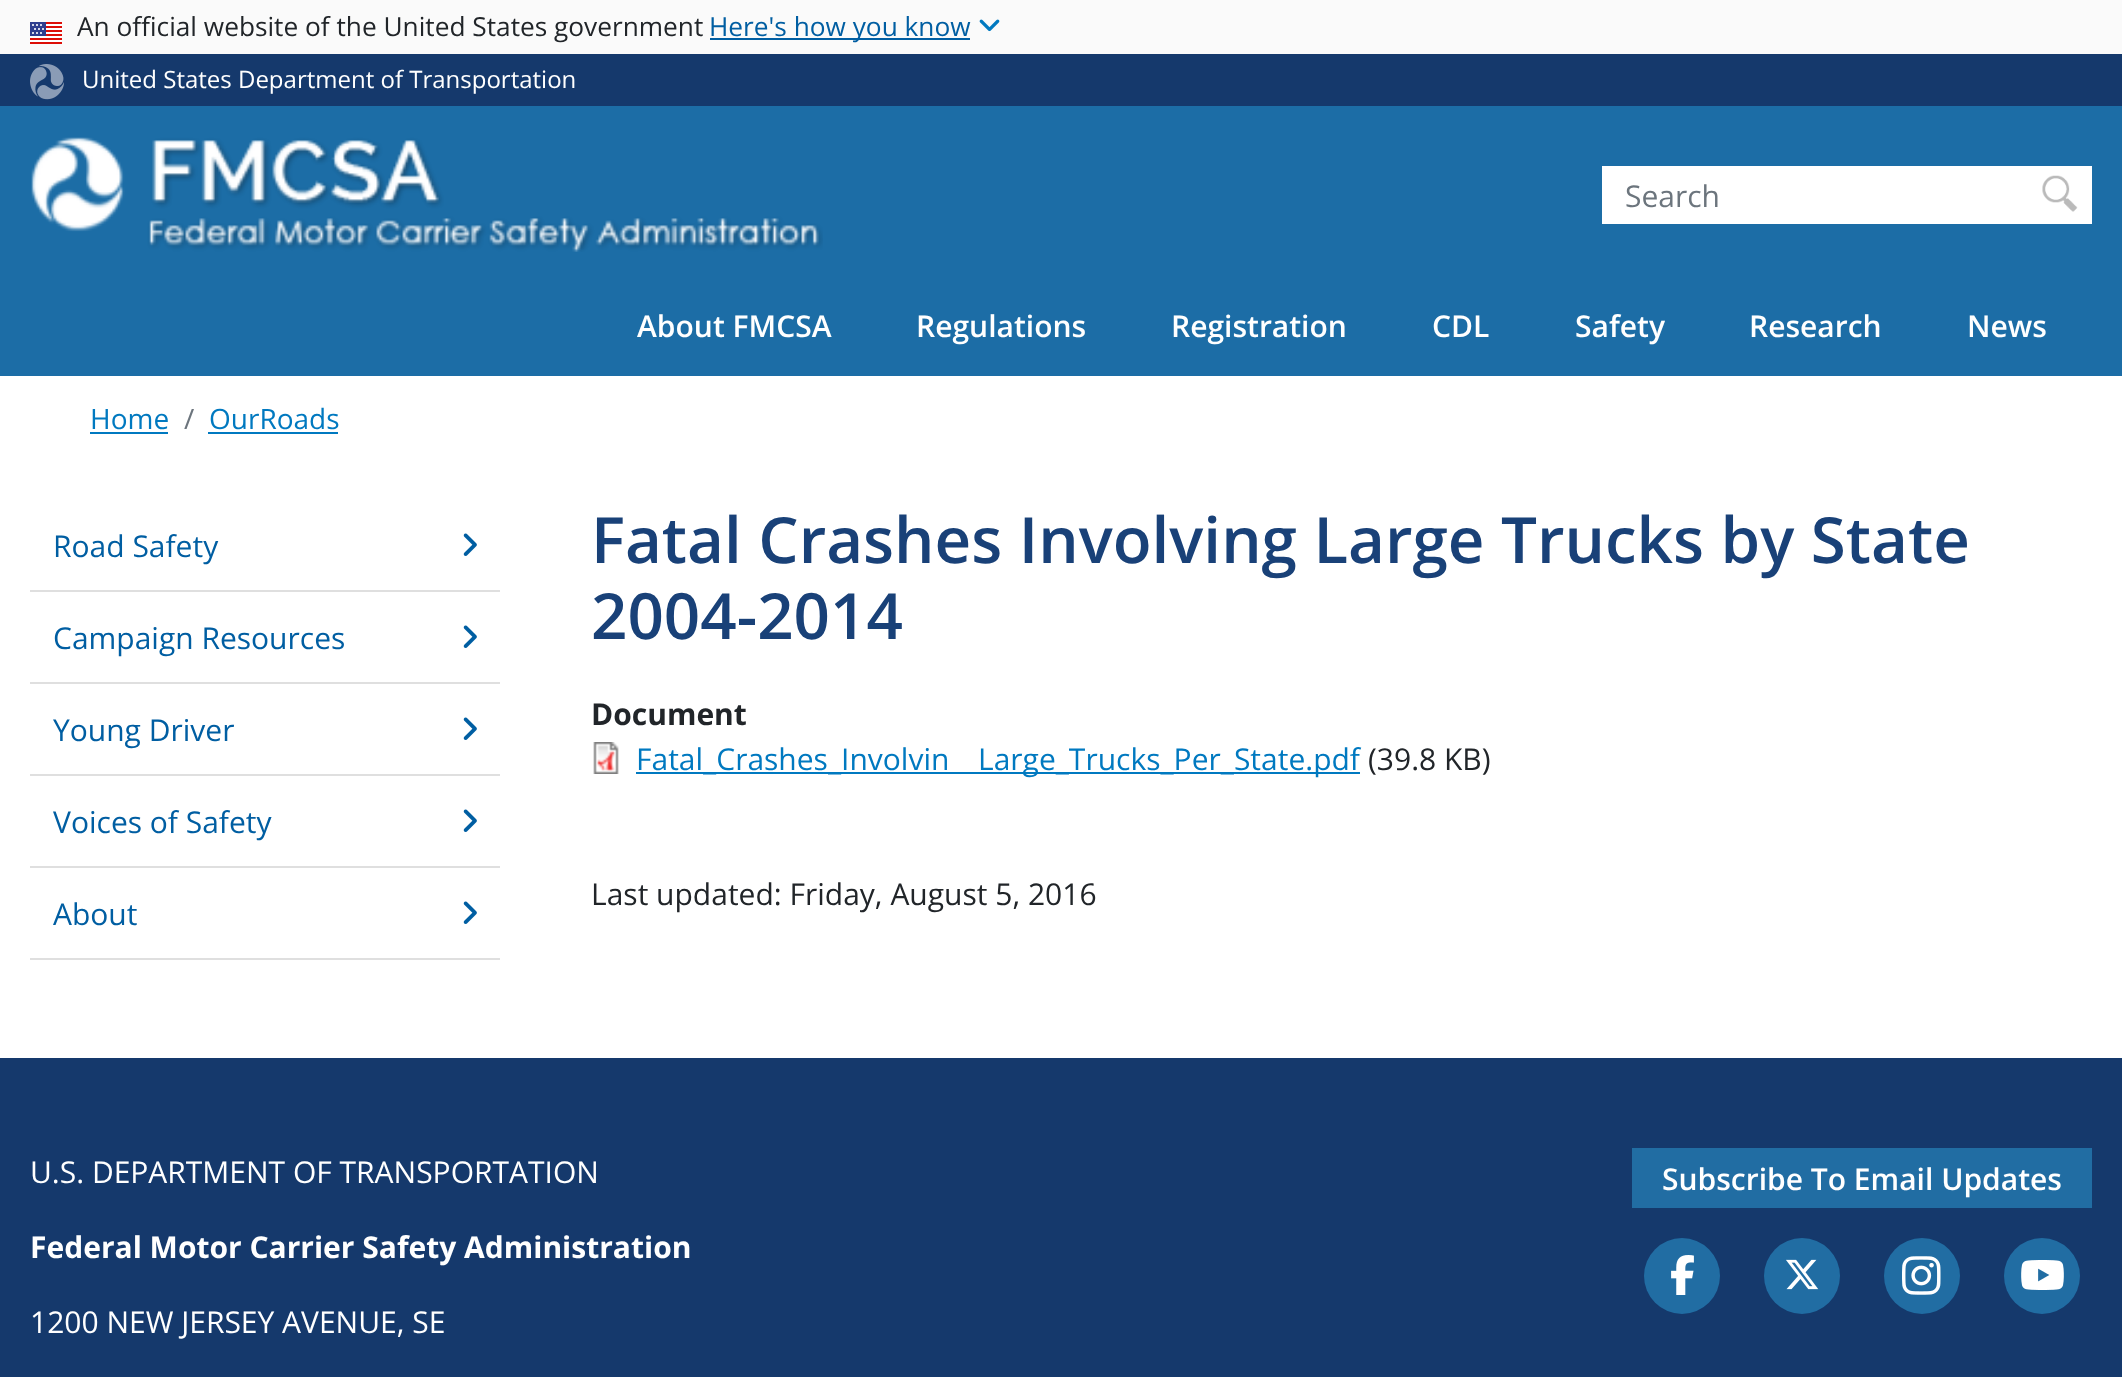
<!DOCTYPE html>
<meta charset="utf-8">
<style>body { margin: 0 } canvas { display: block }</style>
<canvas id="canvas" width="2122" height="1377"></canvas>
<img id="img1" src="images/1.png" hidden>
<img id="img2" src="images/2.png" hidden>
<img id="img3" src="images/3.png" hidden>
<img id="img4" src="images/4.png" hidden>
<img id="img5" src="images/5.png" hidden>
<img id="img6" src="images/6.png" hidden>
<img id="img7" src="images/7.png" hidden>
<img id="img8" src="images/8.png" hidden>
<img id="img9" src="images/9.png" hidden>
<img id="img10" src="images/10.png" hidden>
<img id="img11" src="images/11.png" hidden>
<script>
window.onload = function () {
    const canvas = document.getElementById('canvas');
    const context = canvas.getContext('2d');
    context.miterLimit = 4;
    context.fontKerning = 'normal';

    context.fillStyle = 'rgb(255, 255, 255)';
    context.fillRect(0, 0, 2122, 1377);
    context.fillStyle = 'rgb(250, 250, 250)';
    context.fillRect(0, 0, 2122, 54);
    context.drawImage(document.getElementById('img1'), 30, 22, 32, 22);
    context.fillStyle = 'rgb(0, 94, 162)';
    context.fillRect(710, 38, 260, 2);
    context.drawImage(document.getElementById('img2'), 979, 19, 21, 13);
    context.fillStyle = 'rgb(21, 57, 108)';
    context.fillRect(0, 54, 2122, 52);
    context.drawImage(document.getElementById('img3'), 30, 64, 34, 36);
    context.fillStyle = 'rgb(28, 109, 166)';
    context.fillRect(0, 106, 2122, 270);
    context.drawImage(document.getElementById('img4'), 31, 137, 792, 115);
    context.fillStyle = 'rgb(255, 255, 255)';
    context.fillRect(1602, 166, 490, 58);
    context.drawImage(document.getElementById('img5'), 2042, 175, 36, 37);
    context.fillStyle = 'rgb(0, 121, 192)';
    context.fillRect(90, 432, 78, 2);
    context.fillRect(208, 432, 130, 2);
    context.fillStyle = 'rgb(223, 223, 223)';
    context.fillRect(30, 590, 470, 2);
    context.drawImage(document.getElementById('img6'), 463, 533, 14, 23);
    context.fillRect(30, 682, 470, 2);
    context.drawImage(document.getElementById('img6'), 463, 625, 14, 23);
    context.fillRect(30, 774, 470, 2);
    context.drawImage(document.getElementById('img6'), 463, 717, 14, 23);
    context.fillRect(30, 866, 470, 2);
    context.drawImage(document.getElementById('img6'), 463, 809, 14, 23);
    context.fillRect(30, 958, 470, 2);
    context.drawImage(document.getElementById('img6'), 463, 901, 14, 23);
    context.drawImage(document.getElementById('img7'), 593, 742, 26, 32);
    context.fillStyle = 'rgb(0, 121, 192)';
    context.fillRect(636, 772, 724, 2);
    context.fillStyle = 'rgb(21, 57, 108)';
    context.fillRect(0, 1058, 2122, 319);
    context.fillStyle = 'rgb(33, 109, 163)';
    context.fillRect(1632, 1148, 460, 60);
    context.beginPath();
    context.arc(1682, 1276, 38, 0, 2 * Math.PI);
    context.fill();
    context.drawImage(document.getElementById('img8'), 1671, 1255, 23, 40);
    context.beginPath();
    context.arc(1802, 1276, 38, 0, 2 * Math.PI);
    context.fill();
    context.drawImage(document.getElementById('img9'), 1786, 1259, 33, 31);
    context.beginPath();
    context.arc(1922, 1276, 38, 0, 2 * Math.PI);
    context.fill();
    context.drawImage(document.getElementById('img10'), 1902, 1256, 39, 39);
    context.beginPath();
    context.arc(2042, 1276, 38, 0, 2 * Math.PI);
    context.fill();
    context.drawImage(document.getElementById('img11'), 2021, 1260, 43, 30);
    context.font = '26.25px Open Sans';
    context.fillStyle = 'rgb(33, 37, 41)';
    context.fillText('An official website of the United States government', 77, 36);
    context.fillStyle = 'rgb(0, 94, 162)';
    context.fillText('Here\'s how you know', 709, 36);
    context.font = '24px Open Sans';
    context.fillStyle = 'rgb(255, 255, 255)';
    context.fillText('United States Department of Transportation', 82, 88);
    context.font = '30px Open Sans';
    context.fillStyle = 'rgb(108, 117, 125)';
    context.fillText('Search', 1625, 207);
    context.font = '600 30px Open Sans';
    context.fillStyle = 'rgb(255, 255, 255)';
    context.fillText('About FMCSA', 637, 337);
    context.fillText('Regulations', 916, 337);
    context.fillText('Registration', 1171, 337);
    context.fillText('CDL', 1432, 337);
    context.fillText('Safety', 1575, 337);
    context.fillText('Research', 1749, 337);
    context.fillText('News', 1967, 337);
    context.font = '28px Open Sans';
    context.fillStyle = 'rgb(0, 121, 192)';
    context.fillText('Home', 90, 429);
    context.fillStyle = 'rgb(108, 117, 125)';
    context.fillText('/', 184, 429);
    context.fillStyle = 'rgb(0, 121, 192)';
    context.fillText('OurRoads', 209, 429);
    context.font = '30px Open Sans';
    context.fillStyle = 'rgb(0, 94, 162)';
    context.fillText('Road Safety', 53, 557);
    context.fillText('Campaign Resources', 53, 649);
    context.fillText('Young Driver', 53, 741);
    context.fillText('Voices of Safety', 53, 833);
    context.fillText('About', 53, 925);
    context.font = '600 63.7px Open Sans';
    context.fillStyle = 'rgb(25, 65, 120)';
    context.fillText('Fatal Crashes Involving Large Trucks by State', 591, 563);
    context.fillText('2004-2014', 591, 639);
    context.font = 'bold 30px Open Sans';
    context.fillStyle = 'rgb(33, 37, 41)';
    context.fillText('Document', 591, 725);
    context.font = '30px Open Sans';
    context.fillStyle = 'rgb(0, 121, 192)';
    context.fillText('Fatal_Crashes_Involvin', 636, 770);
    context.fillText('Large_Trucks_Per_State.pdf', 978, 770);
    context.fillStyle = 'rgb(33, 37, 41)';
    context.fillText('(39.8 KB)', 1368, 770);
    context.fillText('Last updated: Friday, August 5, 2016', 591, 905);
    context.fillStyle = 'rgb(255, 255, 255)';
    context.fillText('U.S. DEPARTMENT OF TRANSPORTATION', 30, 1183);
    context.font = 'bold 30px Open Sans';
    context.fillText('Federal Motor Carrier Safety Administration', 30, 1258);
    context.font = '30px Open Sans';
    context.fillText('1200 NEW JERSEY AVENUE, SE', 30, 1333);
    context.font = '600 30px Open Sans';
    context.fillText('Subscribe To Email Updates', 1662, 1190);
};
</script>
